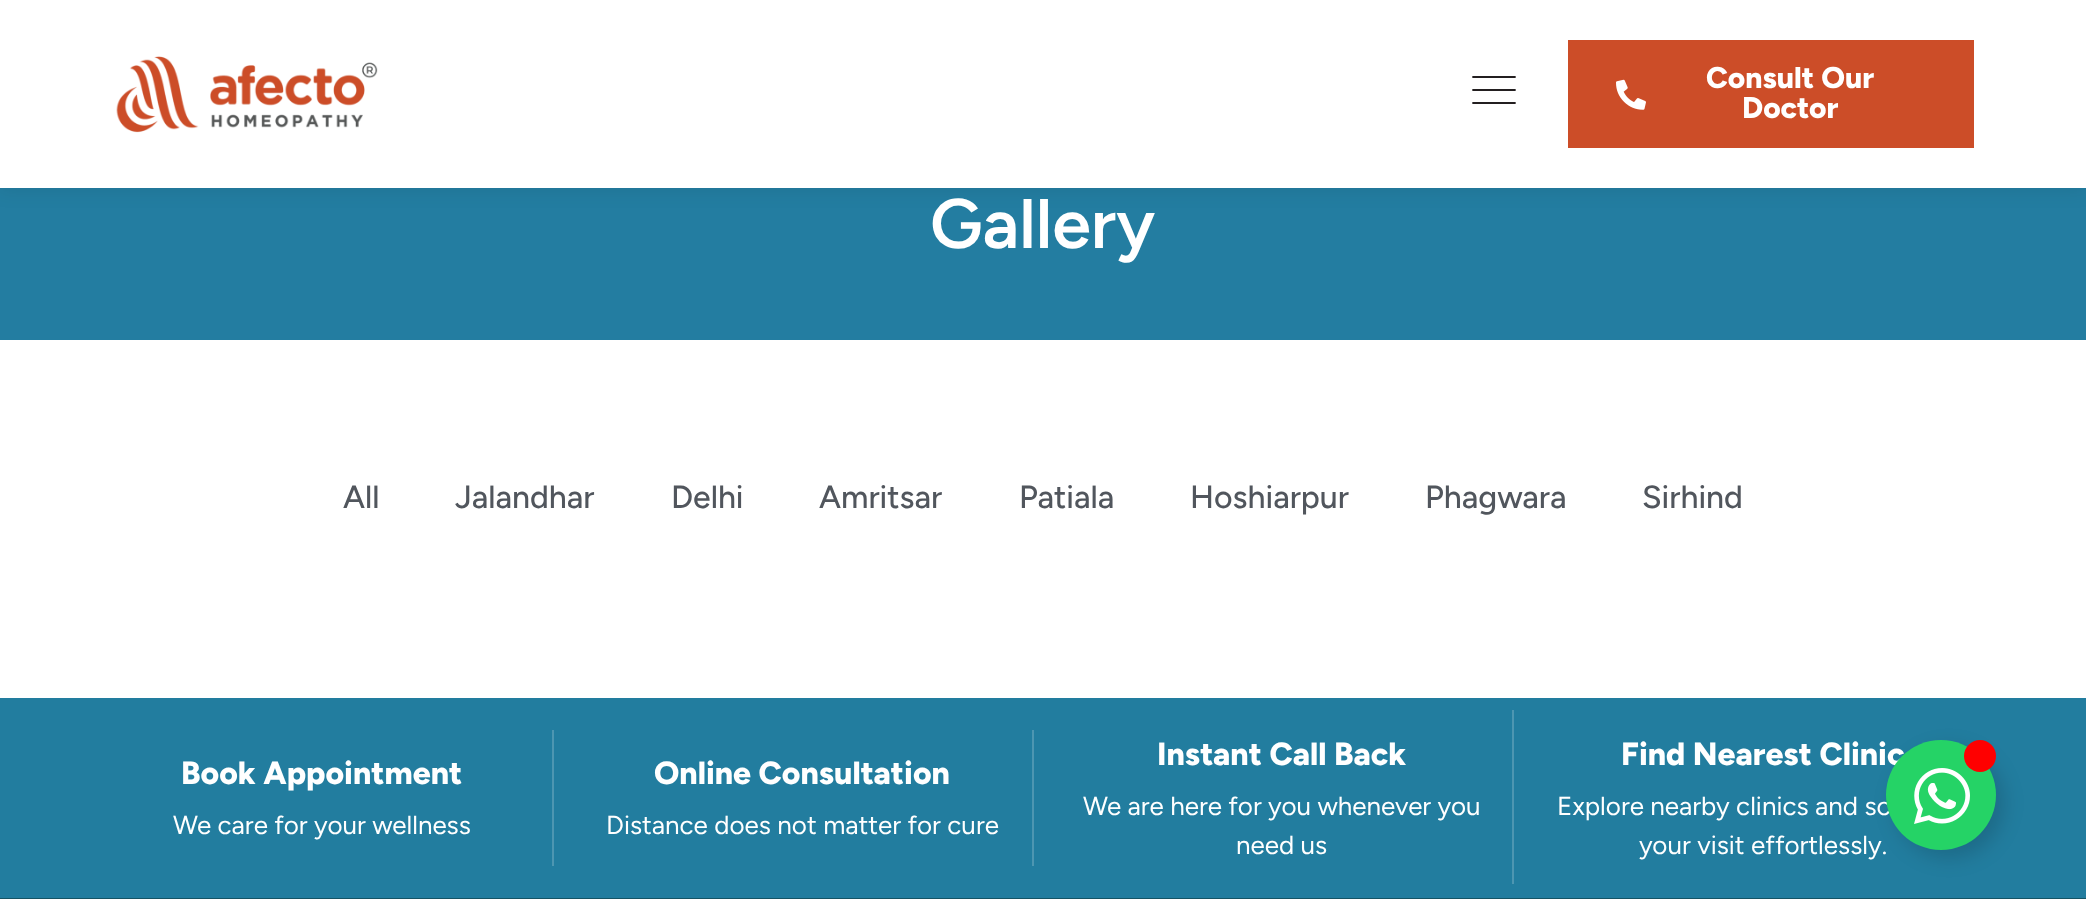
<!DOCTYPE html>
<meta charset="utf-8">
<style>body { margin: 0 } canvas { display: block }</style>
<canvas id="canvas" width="2086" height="899"></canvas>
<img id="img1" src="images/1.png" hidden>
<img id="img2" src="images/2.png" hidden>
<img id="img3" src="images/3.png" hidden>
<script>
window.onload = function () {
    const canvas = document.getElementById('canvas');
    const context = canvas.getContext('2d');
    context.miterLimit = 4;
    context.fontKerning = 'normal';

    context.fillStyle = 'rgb(255, 255, 255)';
    context.fillRect(0, 0, 2086, 899);
    context.fillStyle = 'rgb(35, 125, 161)';
    context.fillRect(0, 188, 2086, 152);
    context.fillStyle = 'rgba(0, 0, 0, 0.08)';
    context.filter = 'blur(10px)';
    context.beginPath();
    context.rect(-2, -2, 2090, 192);
    context.fill();
    context.filter = 'none';
    context.fillStyle = 'rgb(255, 255, 255)';
    context.fillRect(0, 0, 2086, 188);
    context.drawImage(document.getElementById('img1'), 116, 56, 262, 77);
    context.beginPath();
    context.moveTo(1473, 77);
    context.lineTo(1515, 77);
    context.moveTo(1473, 90);
    context.lineTo(1515, 90);
    context.moveTo(1473, 103);
    context.lineTo(1515, 103);
    context.strokeStyle = 'rgb(35, 31, 32)';
    context.lineWidth = 1.8;
    context.lineCap = 'round';
    context.lineJoin = 'round';
    context.stroke();
    context.fillStyle = 'rgb(204, 77, 40)';
    context.fillRect(1568, 40, 406, 108);
    context.drawImage(document.getElementById('img2'), 1616, 79, 30, 31);
    context.fillStyle = 'rgb(34, 125, 159)';
    context.fillRect(0, 698, 2086, 200);
    context.fillStyle = 'rgb(77, 150, 177)';
    context.fillRect(552, 730, 2, 136);
    context.fillRect(1032, 730, 2, 136);
    context.fillRect(1512, 710, 2, 174);
    context.fillStyle = 'rgb(20, 84, 101)';
    context.fillRect(0, 898, 2086, 1);
    context.fillStyle = 'rgba(0, 0, 0, 0.15)';
    context.filter = 'blur(10px)';
    context.beginPath();
    context.roundRect(1894, 748, 110, 110, 55);
    context.fill();
    context.filter = 'none';
    context.font = '800 30px Figtree';
    context.fillStyle = 'rgb(255, 255, 255)';
    context.fillText('Consult Our', 1706, 88);
    context.fillText('Doctor', 1742, 118);
    context.font = '600 70px Figtree';
    context.fillText('Gallery', 930, 248);
    context.font = '500 32px Figtree';
    context.fillStyle = 'rgb(81, 86, 93)';
    context.fillText('All', 343, 508);
    context.fillText('Jalandhar', 455, 508);
    context.fillText('Delhi', 671, 508);
    context.fillText('Amritsar', 819, 508);
    context.fillText('Patiala', 1019, 508);
    context.fillText('Hoshiarpur', 1190, 508);
    context.fillText('Phagwara', 1425, 508);
    context.fillText('Sirhind', 1642, 508);
    context.font = '800 32px Figtree';
    context.fillStyle = 'rgb(255, 255, 255)';
    context.fillText('Book Appointment', 181, 784);
    context.font = '26px Figtree';
    context.fillText('We care for your wellness', 173, 834);
    context.font = '800 32px Figtree';
    context.fillText('Online Consultation', 654, 784);
    context.font = '26px Figtree';
    context.fillText('Distance does not matter for cure', 606, 834);
    context.font = '800 32px Figtree';
    context.fillText('Instant Call Back', 1157, 765);
    context.font = '26px Figtree';
    context.fillText('We are here for you whenever you', 1083, 815);
    context.fillText('need us', 1236, 854);
    context.font = '800 32px Figtree';
    context.fillText('Find Nearest Clinic', 1621, 765);
    context.font = '26px Figtree';
    context.fillText('Explore nearby clinics and sc', 1557, 815);
    context.fillText('your visit effortlessly.', 1639, 854);
    context.fillStyle = 'rgb(37, 211, 102)';
    context.beginPath();
    context.arc(1941, 795, 55, 0, 2 * Math.PI);
    context.fill();
    context.drawImage(document.getElementById('img3'), 1914, 768, 56, 56);
    context.fillStyle = 'rgb(255, 0, 0)';
    context.beginPath();
    context.arc(1980, 756, 16, 0, 2 * Math.PI);
    context.fill();
};
</script>
